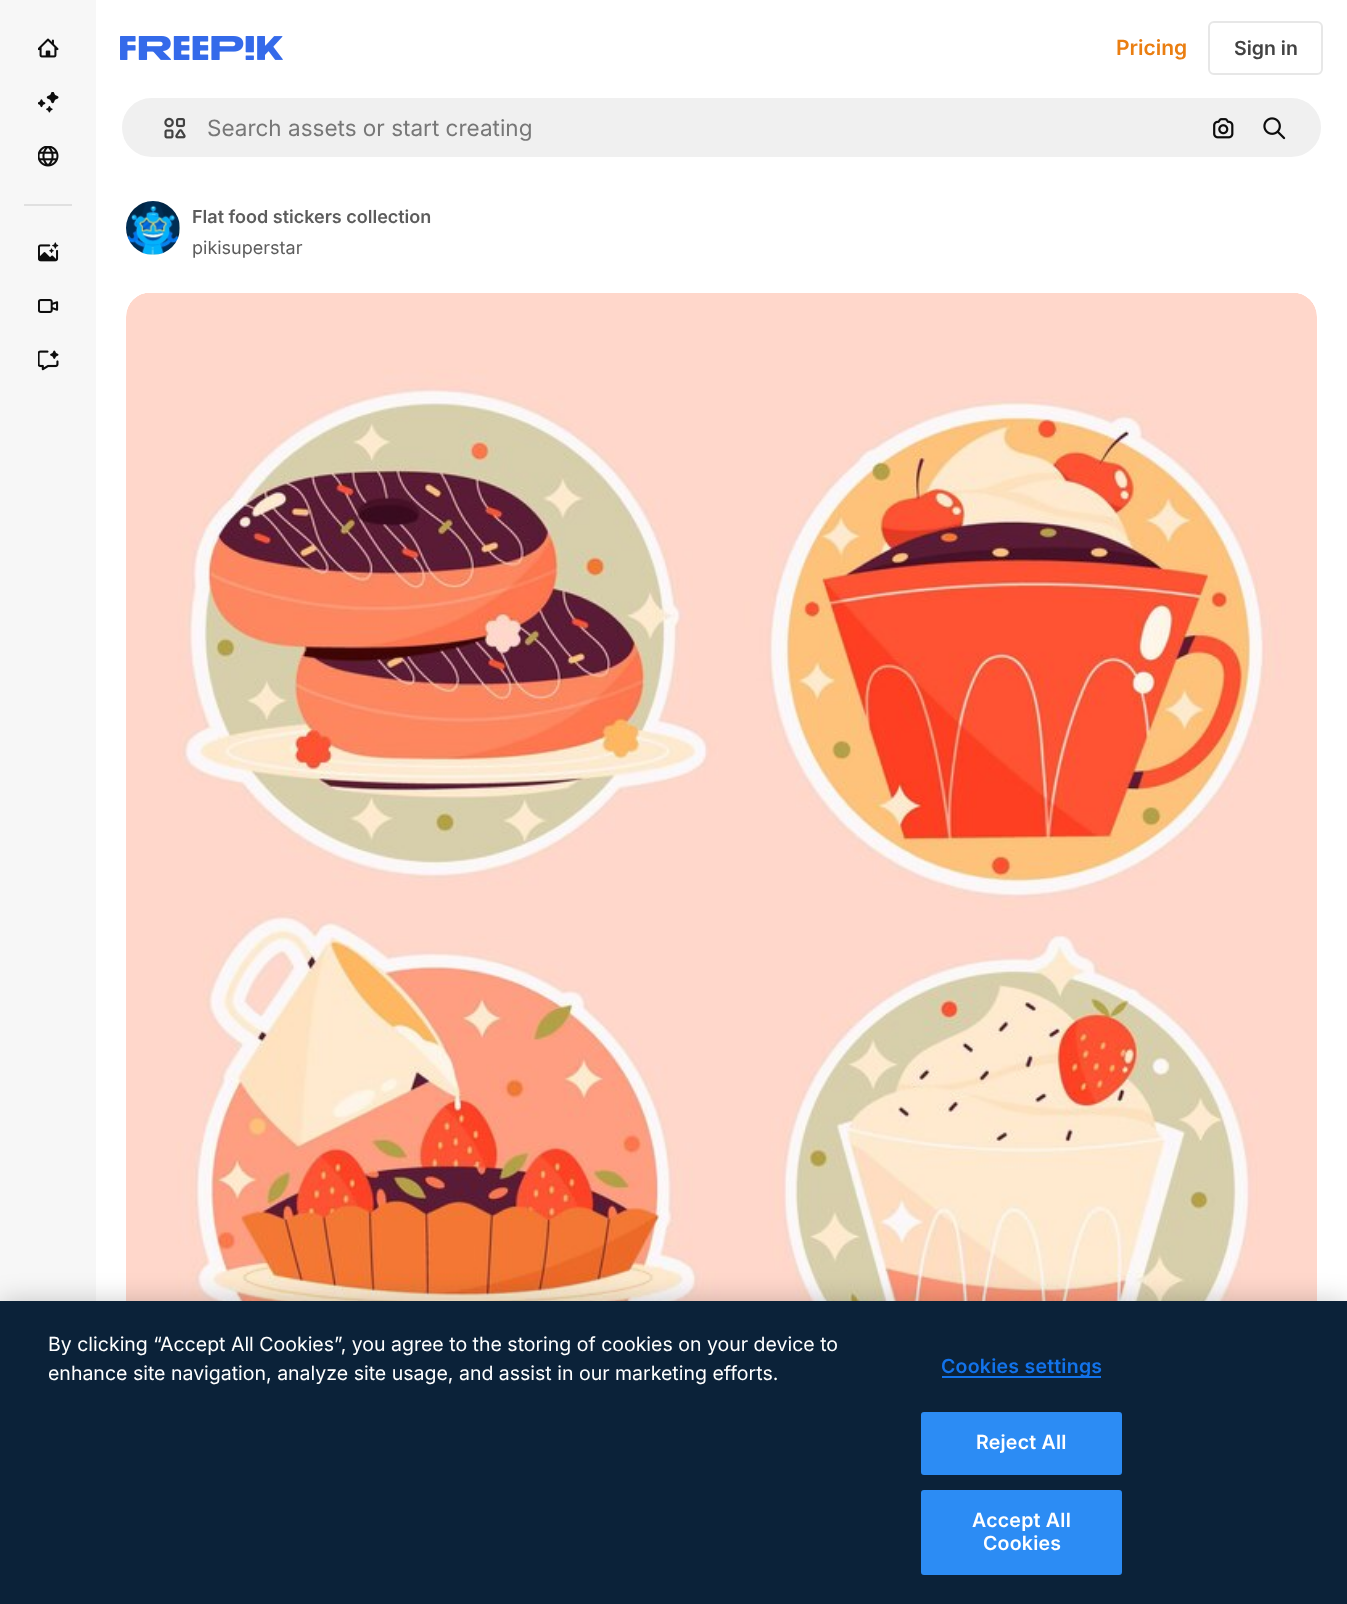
<!DOCTYPE html>
<meta charset="utf-8">
<style>body { margin: 0 } canvas { display: block }</style>
<canvas id="canvas" width="1347" height="1604"></canvas>
<img id="img1" src="images/1.png" hidden>
<img id="img2" src="images/2.png" hidden>
<img id="img3" src="images/3.png" hidden>
<img id="img4" src="images/4.png" hidden>
<img id="img5" src="images/5.png" hidden>
<img id="img6" src="images/6.png" hidden>
<img id="img7" src="images/7.png" hidden>
<img id="img8" src="images/8.png" hidden>
<img id="img9" src="images/9.png" hidden>
<img id="img10" src="images/10.png" hidden>
<img id="img11" src="images/11.png" hidden>
<img id="img12" src="images/12.png" hidden>
<script>
window.onload = function () {
    const canvas = document.getElementById('canvas');
    const context = canvas.getContext('2d');
    context.miterLimit = 4;
    context.fontKerning = 'normal';

    context.fillStyle = 'rgb(255, 255, 255)';
    context.fillRect(0, 0, 1347, 1604);
    context.fillStyle = 'rgb(247, 247, 247)';
    context.fillRect(0, 0, 96, 1301);
    context.drawImage(document.getElementById('img1'), 38, 38, 21, 20);
    context.drawImage(document.getElementById('img2'), 38, 92, 21, 21);
    context.drawImage(document.getElementById('img3'), 38, 146, 21, 21);
    context.fillStyle = 'rgb(224, 224, 224)';
    context.fillRect(24, 204, 48, 2);
    context.drawImage(document.getElementById('img4'), 38, 242, 21, 20);
    context.drawImage(document.getElementById('img5'), 38, 299, 21, 14);
    context.drawImage(document.getElementById('img6'), 38, 350, 21, 21);
    context.drawImage(document.getElementById('img7'), 120, 36, 163, 24);
    context.beginPath();
    context.roundRect(1209, 22, 113, 52, 5);
    context.strokeStyle = 'rgb(231, 231, 231)';
    context.lineWidth = 2;
    context.stroke();
    context.fillStyle = 'rgb(240, 240, 240)';
    context.beginPath();
    context.roundRect(121, 97, 1201, 61, 30.5);
    context.fill();
    context.strokeStyle = 'rgb(255, 255, 255)';
    context.stroke();
    context.drawImage(document.getElementById('img8'), 164, 117, 22, 22);
    context.drawImage(document.getElementById('img9'), 1213, 118, 21, 21);
    context.drawImage(document.getElementById('img10'), 1263, 117, 23, 23);
    context.drawImage(document.getElementById('img11'), 126, 201, 54, 54);
    context.drawImage(document.getElementById('img12'), 126, 293, 1191, 1008);
    context.fillStyle = 'rgba(0, 0, 0, 0.2)';
    context.filter = 'blur(13.5px)';
    context.beginPath();
    context.rect(0, 1301, 1347, 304);
    context.fill();
    context.filter = 'none';
    context.fillStyle = 'rgb(11, 34, 57)';
    context.fillRect(0, 1301, 1347, 303);
    context.fillStyle = 'rgb(18, 115, 235)';
    context.fillRect(942, 1376, 159, 2);
    context.fillStyle = 'rgb(44, 140, 244)';
    context.beginPath();
    context.roundRect(922, 1413, 199, 61, 2);
    context.fill();
    context.strokeStyle = 'rgb(44, 140, 244)';
    context.stroke();
    context.beginPath();
    context.roundRect(922, 1491, 199, 83, 2);
    context.fill();
    context.stroke();
    context.font = '600 21px Inter';
    context.fillStyle = 'rgb(234, 126, 17)';
    context.fillText('Pricing', 1116, 55);
    context.font = '600 19.5px Inter';
    context.fillStyle = 'rgb(66, 66, 66)';
    context.fillText('Sign in', 1234, 55);
    context.font = '22.5px Inter';
    context.fillStyle = 'rgb(119, 119, 119)';
    context.fillText('Search assets or start creating', 207, 136);
    context.font = '600 18px Inter';
    context.fillStyle = 'rgb(92, 92, 92)';
    context.fillText('Flat food stickers collection', 192, 223);
    context.font = '18px Inter';
    context.fillText('pikisuperstar', 192, 254);
    context.font = '19.5px Inter';
    context.fillStyle = 'rgb(255, 255, 255)';
    context.fillText('By clicking “Accept All Cookies”, you agree to the storing of cookies on your device to', 48, 1351);
    context.fillText('enhance site navigation, analyze site usage, and assist in our marketing efforts.', 48, 1380);
    context.letterSpacing = '0.25px';
    context.font = '600 19.5px Inter';
    context.fillStyle = 'rgb(18, 115, 235)';
    context.fillText('Cookies settings', 941, 1373);
    context.fillStyle = 'rgb(255, 255, 255)';
    context.fillText('Reject All', 976, 1449);
    context.fillText('Accept All', 972, 1527);
    context.fillText('Cookies', 983, 1550);
};
</script>
